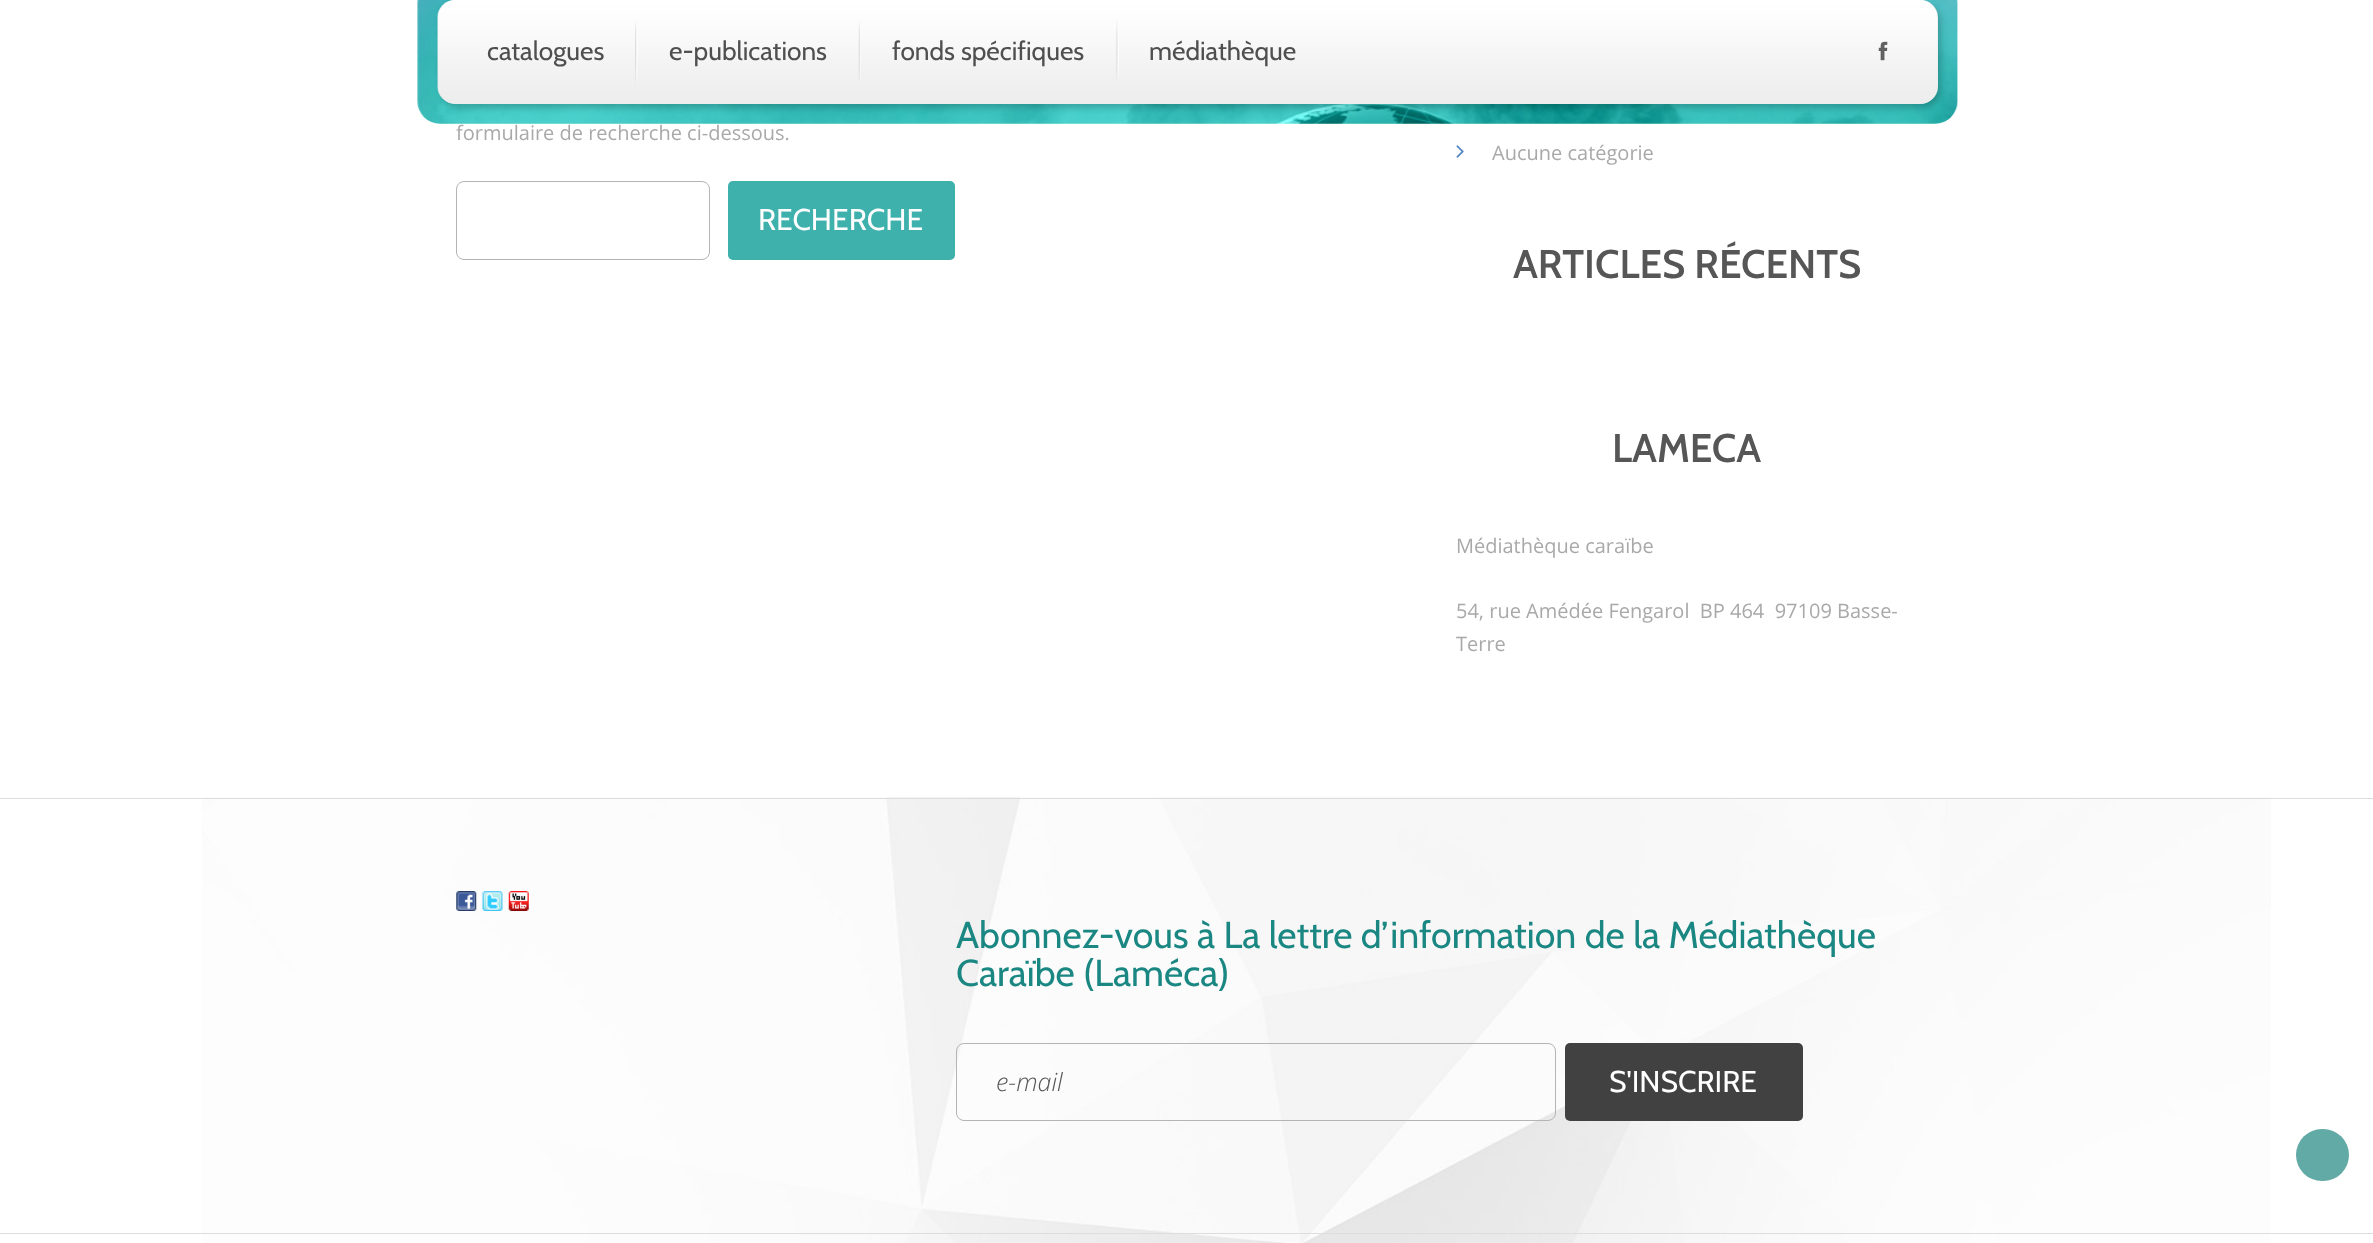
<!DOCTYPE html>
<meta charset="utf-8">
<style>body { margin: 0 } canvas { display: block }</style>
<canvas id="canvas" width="2373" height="1243"></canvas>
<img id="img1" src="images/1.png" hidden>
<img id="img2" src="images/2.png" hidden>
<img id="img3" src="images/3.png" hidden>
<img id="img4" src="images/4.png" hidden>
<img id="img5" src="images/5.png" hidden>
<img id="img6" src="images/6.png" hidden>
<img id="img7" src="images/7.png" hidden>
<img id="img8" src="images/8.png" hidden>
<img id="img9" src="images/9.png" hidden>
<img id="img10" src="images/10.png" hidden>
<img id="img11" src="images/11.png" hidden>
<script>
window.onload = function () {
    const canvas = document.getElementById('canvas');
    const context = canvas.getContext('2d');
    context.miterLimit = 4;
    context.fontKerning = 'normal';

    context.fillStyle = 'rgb(255, 255, 255)';
    context.fillRect(0, 0, 2373, 1243);
    context.drawImage(document.getElementById('img1'), 417, 0, 1541, 124);
    context.fillStyle = 'rgba(0, 0, 0, 0.2)';
    context.filter = 'blur(3px)';
    context.beginPath();
    context.roundRect(441, 4, 1500, 104, 18);
    context.fill();
    context.filter = 'none';
    context.fillStyle = 'rgb(237, 237, 237)';
    context.beginPath();
    context.roundRect(438, 0, 1500, 104, 18);
    context.fill();
    context.drawImage(document.getElementById('img2'), 437, 0, 1501, 104);
    context.drawImage(document.getElementById('img3'), 635, 20, 3, 64);
    context.drawImage(document.getElementById('img4'), 858, 21, 3, 61);
    context.drawImage(document.getElementById('img5'), 1116, 21, 3, 59);
    context.drawImage(document.getElementById('img6'), 1878, 41, 10, 20);
    context.beginPath();
    context.roundRect(456.5, 181.5, 253, 78, 7.5);
    context.strokeStyle = 'rgb(180, 180, 180)';
    context.stroke();
    context.fillStyle = 'rgb(62, 177, 173)';
    context.beginPath();
    context.roundRect(728, 181, 227, 79, 5);
    context.fill();
    context.drawImage(document.getElementById('img7'), 1456, 145, 8, 13);
    context.drawImage(document.getElementById('img8'), 202, 797, 2069, 446);
    context.fillStyle = 'rgb(221, 221, 221)';
    context.fillRect(0, 798, 2373, 1);
    context.drawImage(document.getElementById('img9'), 456, 891, 21, 20);
    context.drawImage(document.getElementById('img10'), 482, 891, 21, 20);
    context.drawImage(document.getElementById('img11'), 508, 891, 21, 20);
    context.beginPath();
    context.roundRect(956.5, 1043.5, 599, 77, 7.5);
    context.stroke();
    context.fillStyle = 'rgb(65, 65, 65)';
    context.beginPath();
    context.roundRect(1565, 1043, 238, 78, 5);
    context.fill();
    context.fillStyle = 'rgb(221, 221, 221)';
    context.fillRect(0, 1233, 2373, 1);
    context.fillStyle = 'rgb(98, 170, 166)';
    context.beginPath();
    context.roundRect(2296, 1129, 53, 52, 26);
    context.fill();
    context.font = '26.25px Cabin';
    context.fillStyle = 'rgb(79, 79, 79)';
    context.fillText('catalogues', 487, 60);
    context.fillText('e-publications', 669, 60);
    context.fillText('fonds spécifiques', 892, 60);
    context.fillText('médiathèque', 1149, 60);
    context.font = '20px Open Sans';
    context.fillStyle = 'rgb(169, 169, 169)';
    context.fillText('formulaire de recherche ci-dessous.', 456, 140);
    context.font = '30px Cabin';
    context.fillStyle = 'rgb(254, 254, 254)';
    context.fillText('RECHERCHE', 758, 230);
    context.font = '20px Open Sans';
    context.fillStyle = 'rgb(169, 169, 169)';
    context.fillText('Aucune catégorie', 1492, 160);
    context.font = '600 40px Cabin';
    context.fillStyle = 'rgb(86, 86, 86)';
    context.fillText('ARTICLES RÉCENTS', 1513, 278);
    context.fillText('LAMECA', 1612, 462);
    context.font = '20px Open Sans';
    context.fillStyle = 'rgb(169, 169, 169)';
    context.fillText('Médiathèque caraïbe', 1456, 553);
    context.fillText('54, rue Amédée Fengarol  BP 464  97109 Basse-', 1456, 618);
    context.fillText('Terre', 1456, 651);
    context.font = '37.5px Cabin';
    context.fillStyle = 'rgb(27, 135, 131)';
    context.fillText('Abonnez-vous à La lettre d’information de la Médiathèque', 956, 948);
    context.fillText('Caraïbe (Laméca)', 956, 986);
    context.font = 'italic 300 25px Open Sans';
    context.fillStyle = 'rgb(86, 86, 86)';
    context.fillText('e-mail', 996, 1091);
    context.font = '30px Cabin';
    context.fillStyle = 'rgb(254, 254, 254)';
    context.fillText('S\'INSCRIRE', 1609, 1092);
};
</script>
